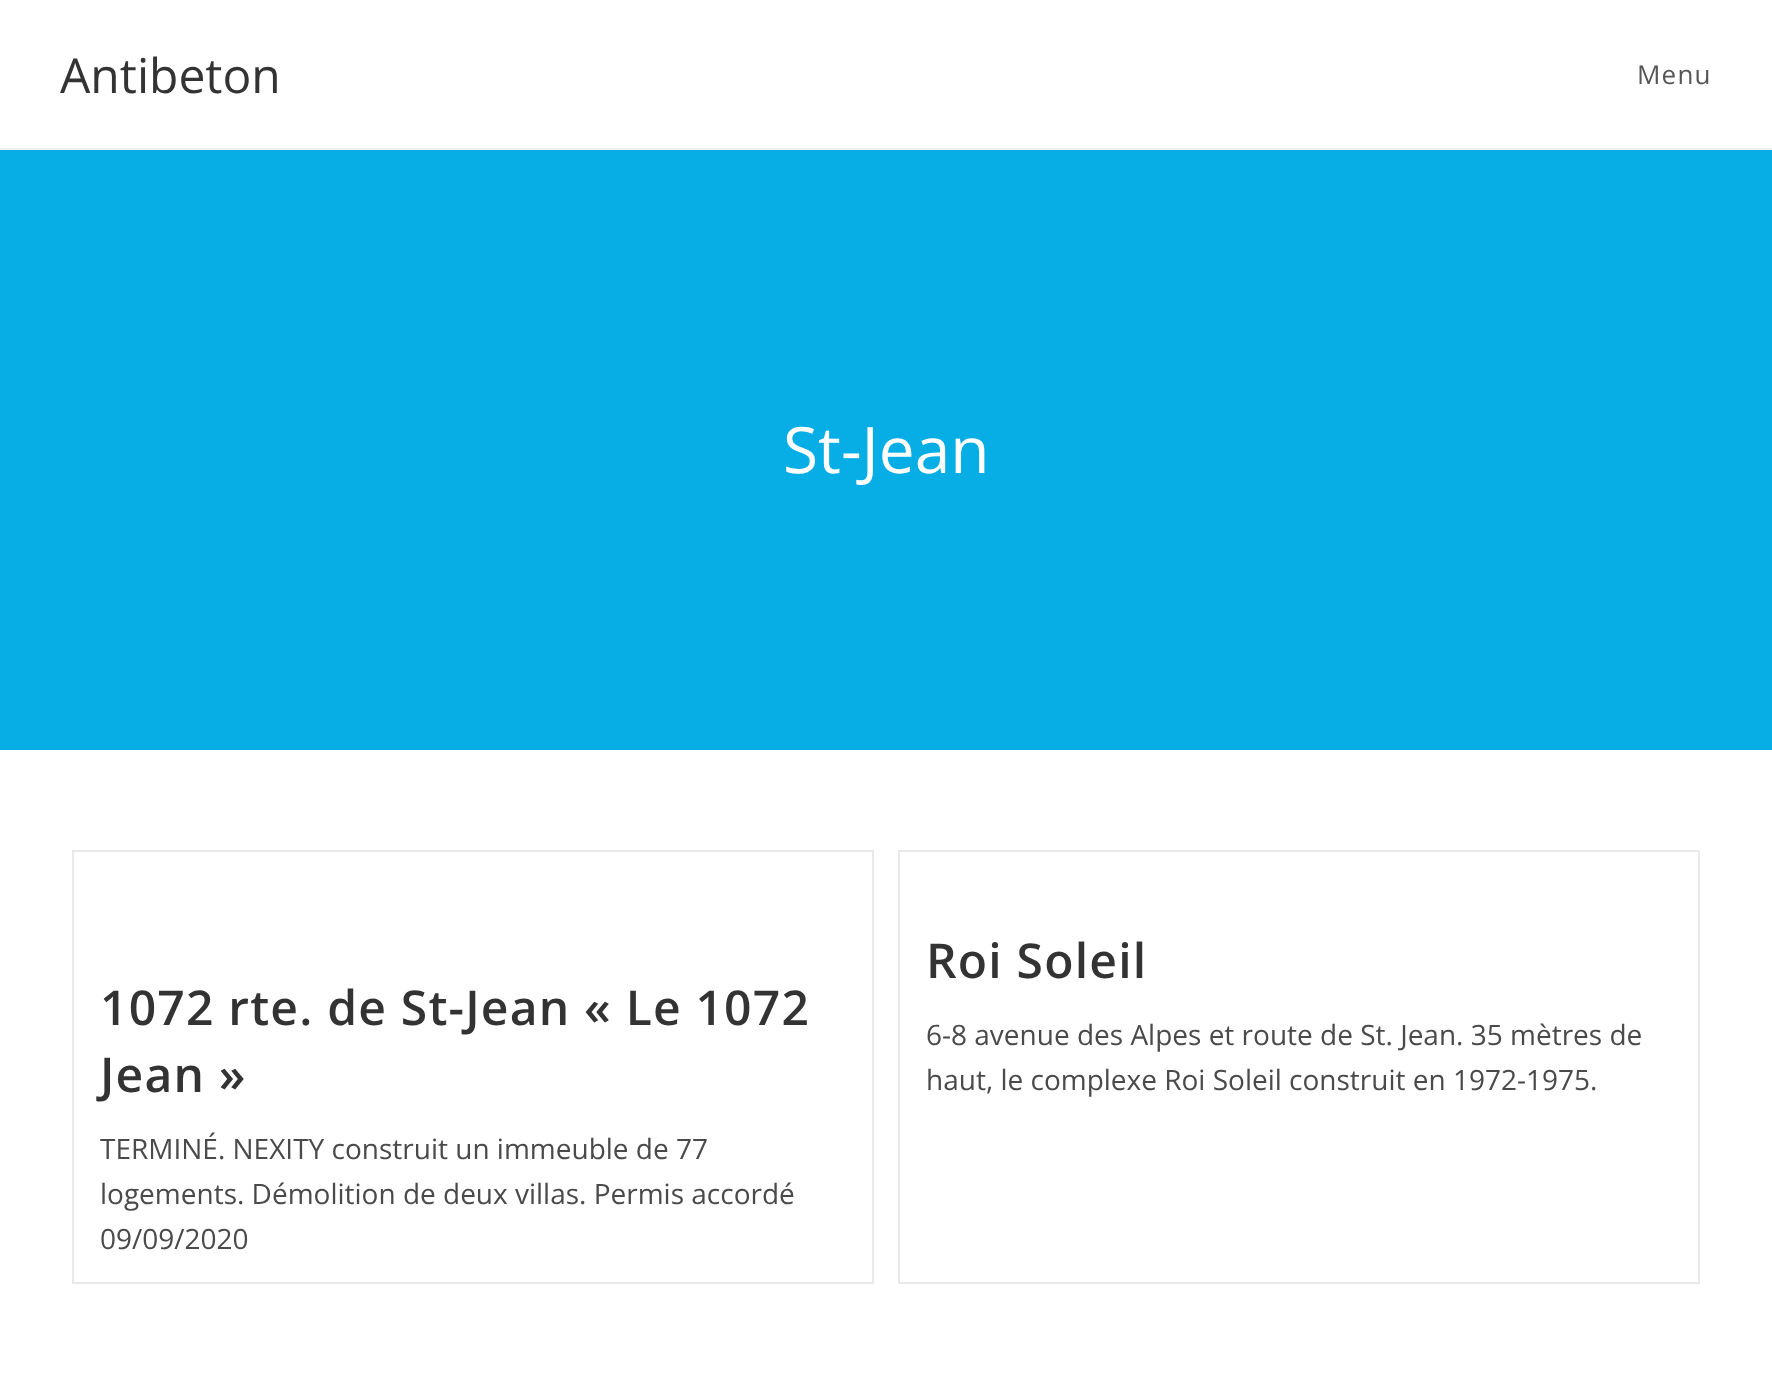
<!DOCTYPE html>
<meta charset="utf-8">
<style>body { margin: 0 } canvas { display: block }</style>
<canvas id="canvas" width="1772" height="1396"></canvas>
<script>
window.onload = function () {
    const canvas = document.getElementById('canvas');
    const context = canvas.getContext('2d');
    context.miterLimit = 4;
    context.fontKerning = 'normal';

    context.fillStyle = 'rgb(255, 255, 255)';
    context.fillRect(0, 0, 1772, 1396);
    context.fillStyle = 'rgb(241, 241, 241)';
    context.fillRect(0, 148, 1772, 2);
    context.fillStyle = 'rgb(6, 174, 229)';
    context.fillRect(0, 150, 1772, 600);
    context.strokeStyle = 'rgb(233, 233, 233)';
    context.lineWidth = 2;
    context.strokeRect(73, 851, 800, 432);
    context.strokeRect(899, 851, 800, 432);
    context.font = '48px Open Sans';
    context.fillStyle = 'rgb(51, 51, 51)';
    context.fillText('Antibeton', 60, 93);
    context.letterSpacing = '1.2px';
    context.font = '26px Open Sans';
    context.fillStyle = 'rgb(85, 85, 85)';
    context.fillText('Menu', 1637, 84);
    context.letterSpacing = '0px';
    context.font = '64px Open Sans';
    context.fillStyle = 'rgb(255, 255, 255)';
    context.fillText('St-Jean', 783, 473);
    context.letterSpacing = '1.2px';
    context.font = '600 48px Open Sans';
    context.fillStyle = 'rgb(51, 51, 51)';
    context.fillText('1072 rte. de St-Jean « Le 1072', 100, 1025);
    context.fillText('Jean »', 100, 1092);
    context.letterSpacing = '0px';
    context.font = '28px Open Sans';
    context.fillStyle = 'rgb(74, 74, 74)';
    context.fillText('TERMINÉ. NEXITY construit un immeuble de 77', 100, 1159);
    context.fillText('logements. Démolition de deux villas. Permis accordé', 100, 1204);
    context.fillText('09/09/2020', 100, 1249);
    context.letterSpacing = '1.2px';
    context.font = '600 48px Open Sans';
    context.fillStyle = 'rgb(51, 51, 51)';
    context.fillText('Roi Soleil', 926, 978);
    context.letterSpacing = '0px';
    context.font = '28px Open Sans';
    context.fillStyle = 'rgb(74, 74, 74)';
    context.fillText('6-8 avenue des Alpes et route de St. Jean. 35 mètres de', 926, 1045);
    context.fillText('haut, le complexe Roi Soleil construit en 1972-1975.', 926, 1090);
};
</script>
